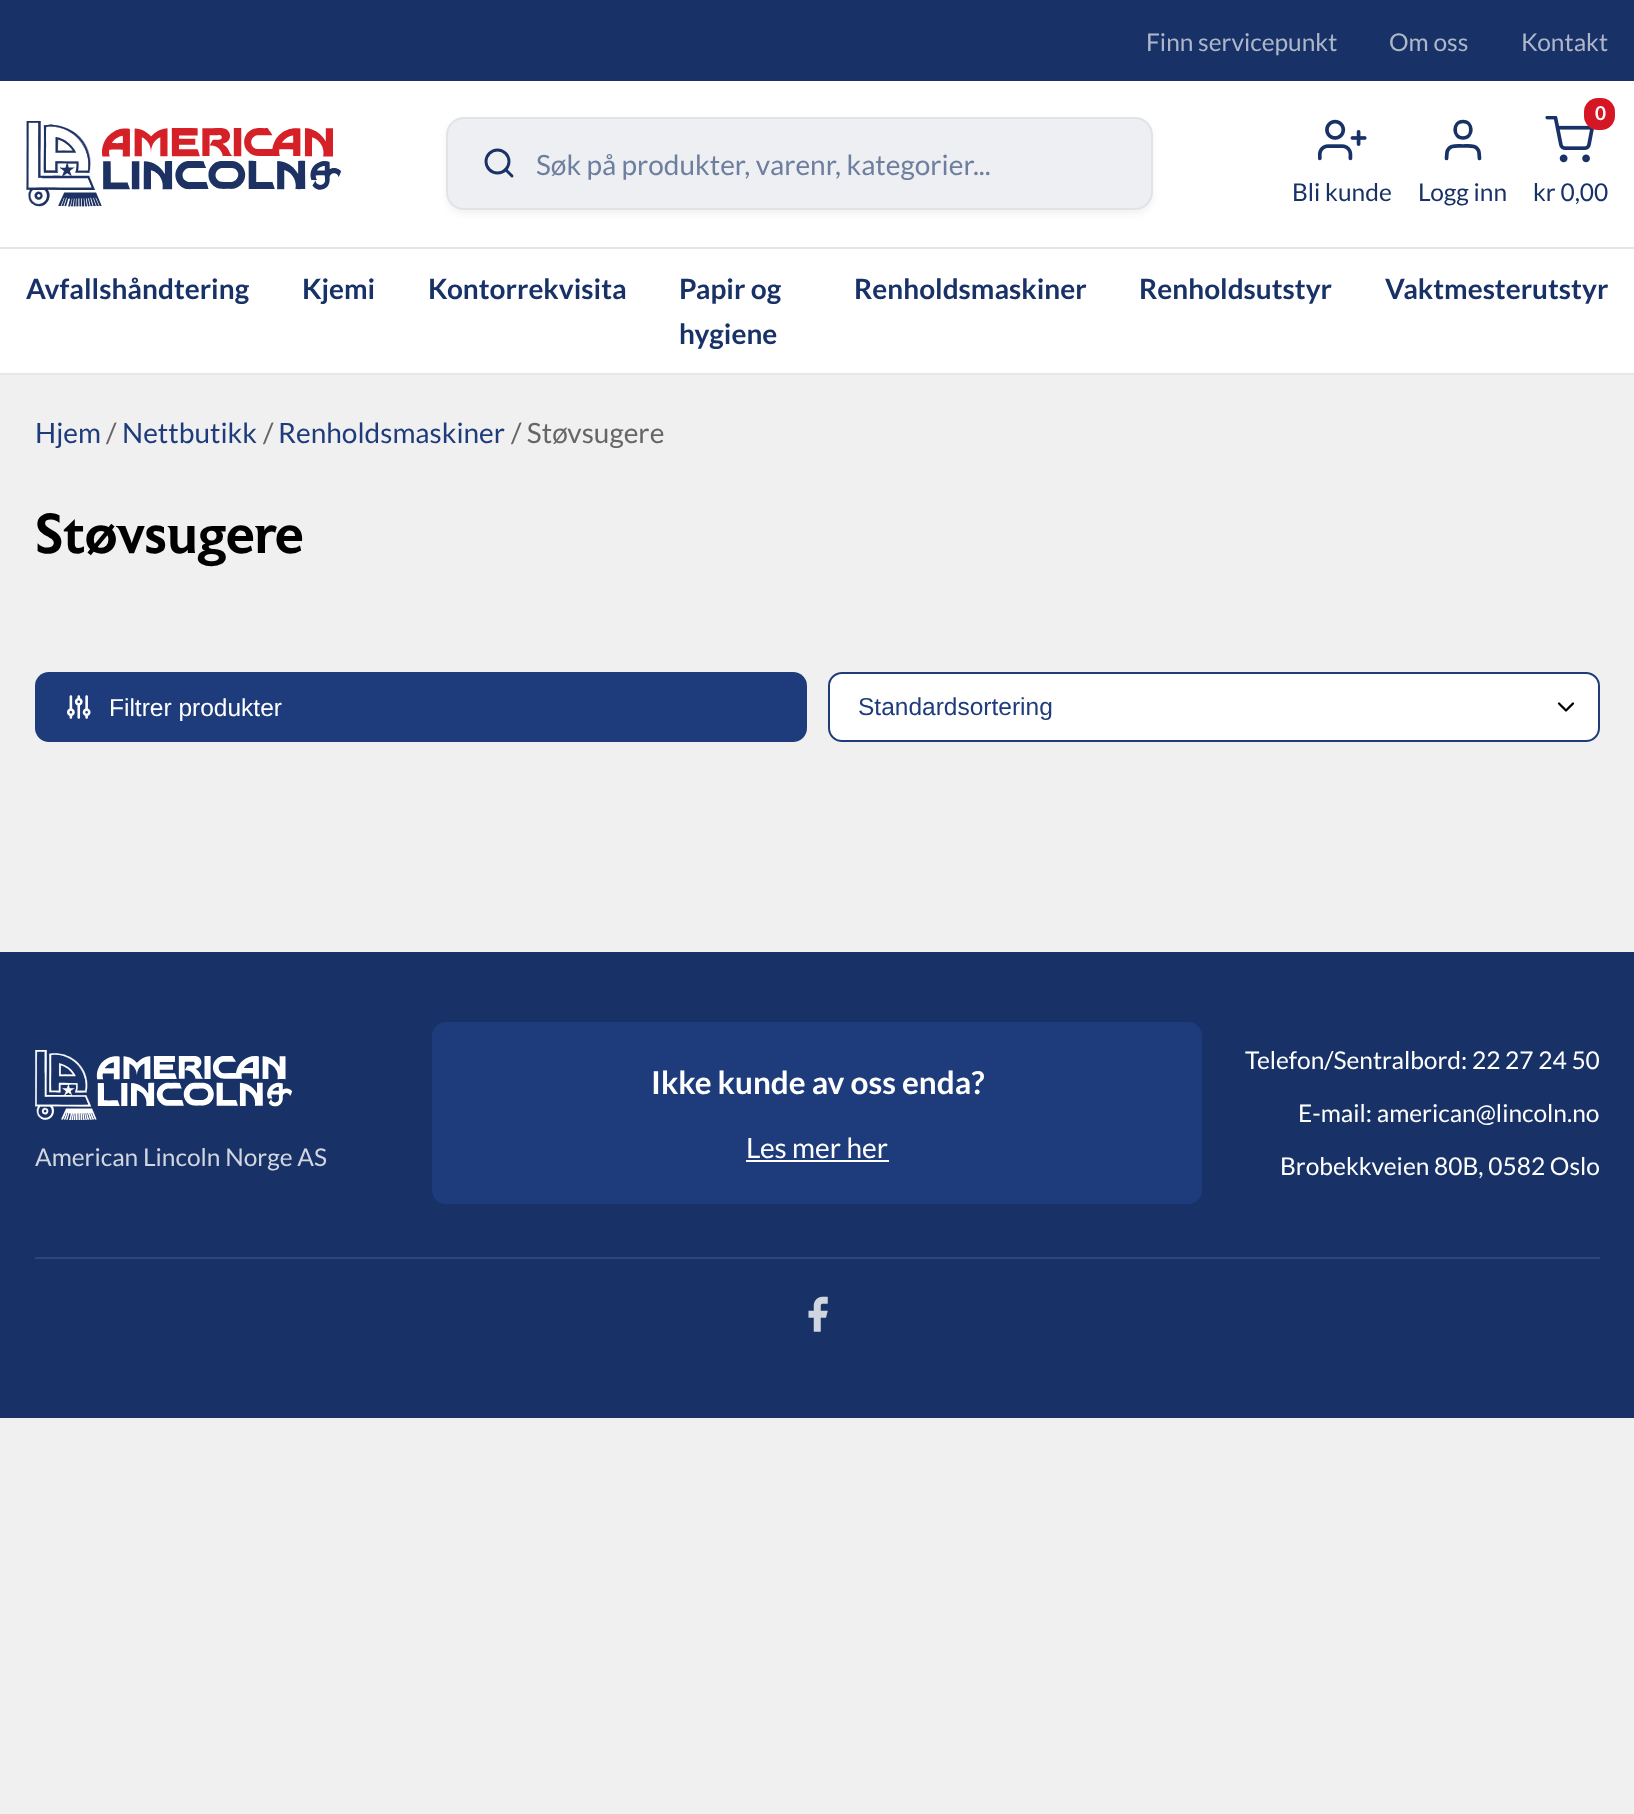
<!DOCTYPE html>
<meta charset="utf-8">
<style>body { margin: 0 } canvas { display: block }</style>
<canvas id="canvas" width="1634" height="1814"></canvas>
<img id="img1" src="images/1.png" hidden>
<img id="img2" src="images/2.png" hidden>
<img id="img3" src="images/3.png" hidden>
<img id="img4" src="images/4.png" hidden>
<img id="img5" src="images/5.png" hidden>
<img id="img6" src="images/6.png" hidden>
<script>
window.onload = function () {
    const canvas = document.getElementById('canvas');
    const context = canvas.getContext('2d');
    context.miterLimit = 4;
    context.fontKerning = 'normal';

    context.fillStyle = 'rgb(240, 240, 240)';
    context.fillRect(0, 0, 1634, 1814);
    context.fillStyle = 'rgb(24, 50, 103)';
    context.fillRect(0, 0, 1634, 81);
    context.fillStyle = 'rgb(255, 255, 255)';
    context.fillRect(0, 81, 1634, 166);
    context.fillStyle = 'rgb(229, 229, 229)';
    context.fillRect(0, 247, 1634, 2);
    context.drawImage(document.getElementById('img1'), 26, 121, 315, 86);
    context.fillStyle = 'rgba(0, 0, 0, 0.05)';
    context.filter = 'blur(3.5px)';
    context.beginPath();
    context.roundRect(446, 121, 707, 93, 18);
    context.fill();
    context.filter = 'none';
    context.fillStyle = 'rgb(238, 239, 242)';
    context.beginPath();
    context.roundRect(447, 118, 705, 91, 17);
    context.fill();
    context.strokeStyle = 'rgb(225, 228, 231)';
    context.lineWidth = 2;
    context.stroke();
    context.beginPath();
    context.arc(497.5, 161.5, 11.5, 0, 2 * Math.PI);
    context.strokeStyle = 'rgb(24, 50, 103)';
    context.lineWidth = 2.9;
    context.stroke();
    context.beginPath();
    context.moveTo(512, 176);
    context.lineTo(505.5, 169.5);
    context.lineCap = 'round';
    context.lineJoin = 'round';
    context.stroke();
    context.drawImage(document.getElementById('img2'), 1318, 119, 49, 42);
    context.beginPath();
    context.moveTo(1479.5, 158.5);
    context.lineTo(1479, 152.5);
    context.bezierCurveTo(1477.5, 144.5, 1469, 146, 1463, 146);
    context.bezierCurveTo(1457, 146, 1448.5, 144.5, 1447, 152.5);
    context.lineTo(1446.5, 158.5);
    context.moveTo(1463, 138);
    context.bezierCurveTo(1473.5, 138, 1473.5, 121.5, 1463, 121.5);
    context.bezierCurveTo(1452.5, 121.5, 1452.5, 138, 1463, 138);
    context.closePath();
    context.lineWidth = 3.7;
    context.stroke();
    context.drawImage(document.getElementById('img3'), 1545, 116, 49, 47);
    context.fillStyle = 'rgb(213, 22, 37)';
    context.beginPath();
    context.roundRect(1584, 98, 31, 32, 14);
    context.fill();
    context.fillStyle = 'rgb(255, 255, 255)';
    context.fillRect(0, 249, 1634, 124);
    context.fillStyle = 'rgb(230, 230, 230)';
    context.fillRect(0, 373, 1634, 2);
    context.fillStyle = 'rgb(30, 60, 123)';
    context.beginPath();
    context.roundRect(35, 672, 772, 70, 14);
    context.fill();
    context.drawImage(document.getElementById('img4'), 67, 695, 24, 24);
    context.fillStyle = 'rgb(255, 255, 255)';
    context.beginPath();
    context.roundRect(828, 672, 772, 70, 14);
    context.fill();
    context.beginPath();
    context.moveTo(1559, 703.5);
    context.lineTo(1566, 710.5);
    context.lineTo(1573, 703.5);
    context.strokeStyle = 'rgb(0, 0, 0)';
    context.lineWidth = 2.3;
    context.stroke();
    context.beginPath();
    context.roundRect(829, 673, 770, 68, 13);
    context.strokeStyle = 'rgb(30, 60, 123)';
    context.lineWidth = 2;
    context.lineJoin = 'miter';
    context.stroke();
    context.fillStyle = 'rgb(24, 50, 103)';
    context.fillRect(0, 952, 1634, 466);
    context.drawImage(document.getElementById('img5'), 35, 1050, 257, 70);
    context.fillStyle = 'rgb(30, 60, 123)';
    context.beginPath();
    context.roundRect(432, 1022, 770, 182, 14);
    context.fill();
    context.fillStyle = 'rgb(255, 255, 255)';
    context.fillRect(746, 1160, 143, 2);
    context.fillStyle = 'rgb(47, 71, 118)';
    context.fillRect(35, 1257, 1565, 2);
    context.drawImage(document.getElementById('img6'), 808, 1296, 20, 36);
    context.font = '24.5px Lato';
    context.fillStyle = 'rgb(174, 183, 202)';
    context.fillText('Finn servicepunkt', 1146, 51);
    context.fillText('Om oss', 1389, 51);
    context.fillText('Kontakt', 1521, 51);
    context.font = '28px Lato';
    context.fillStyle = 'rgb(110, 126, 159)';
    context.fillText('Søk på produkter, varenr, kategorier...', 536, 175);
    context.font = '24.5px Lato';
    context.fillStyle = 'rgb(24, 50, 103)';
    context.fillText('Bli kunde', 1292, 201);
    context.fillText('Logg inn', 1418, 201);
    context.font = 'bold 19px Lato';
    context.fillStyle = 'rgb(255, 255, 255)';
    context.fillText('0', 1595, 120);
    context.font = '24.5px Lato';
    context.fillStyle = 'rgb(24, 50, 103)';
    context.fillText('kr 0,00', 1533, 201);
    context.font = 'bold 28px Lato';
    context.fillText('Avfallshåndtering', 26, 299);
    context.fillText('Kjemi', 302, 299);
    context.fillText('Kontorrekvisita', 428, 299);
    context.fillText('Papir og', 679, 299);
    context.fillText('hygiene', 679, 344);
    context.fillText('Renholdsmaskiner', 854, 299);
    context.fillText('Renholdsutstyr', 1139, 299);
    context.fillText('Vaktmesterutstyr', 1385, 299);
    context.font = '28px Lato';
    context.fillStyle = 'rgb(30, 60, 123)';
    context.fillText('Hjem', 35, 443);
    context.fillStyle = 'rgb(102, 102, 102)';
    context.fillText('/', 106, 443);
    context.fillStyle = 'rgb(30, 60, 123)';
    context.fillText('Nettbutikk', 122, 443);
    context.fillStyle = 'rgb(102, 102, 102)';
    context.fillText('/', 263, 443);
    context.fillStyle = 'rgb(30, 60, 123)';
    context.fillText('Renholdsmaskiner', 278, 443);
    context.fillStyle = 'rgb(102, 102, 102)';
    context.fillText('/ Støvsugere', 511, 443);
    context.font = '500 56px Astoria';
    context.fillStyle = 'rgb(0, 0, 0)';
    context.fillText('Støvsugere', 35, 553);
    context.font = '24.5px Liberation Sans';
    context.fillStyle = 'rgb(255, 255, 255)';
    context.fillText('Filtrer produkter', 109, 716);
    context.fillStyle = 'rgb(30, 60, 123)';
    context.fillText('Standardsortering', 858, 715);
    context.font = '24.5px Lato';
    context.fillStyle = 'rgb(209, 214, 225)';
    context.fillText('American Lincoln Norge AS', 35, 1166);
    context.font = 'bold 31.5px Lato';
    context.fillStyle = 'rgb(255, 255, 255)';
    context.fillText('Ikke kunde av oss enda?', 651, 1094);
    context.font = '28px Lato';
    context.fillText('Les mer her', 746, 1158);
    context.font = '24.5px Lato';
    context.fillText('Telefon/Sentralbord: 22 27 24 50', 1245, 1069);
    context.fillText('E-mail: american@lincoln.no', 1298, 1122);
    context.fillText('Brobekkveien 80B, 0582 Oslo', 1280, 1175);
};
</script>
